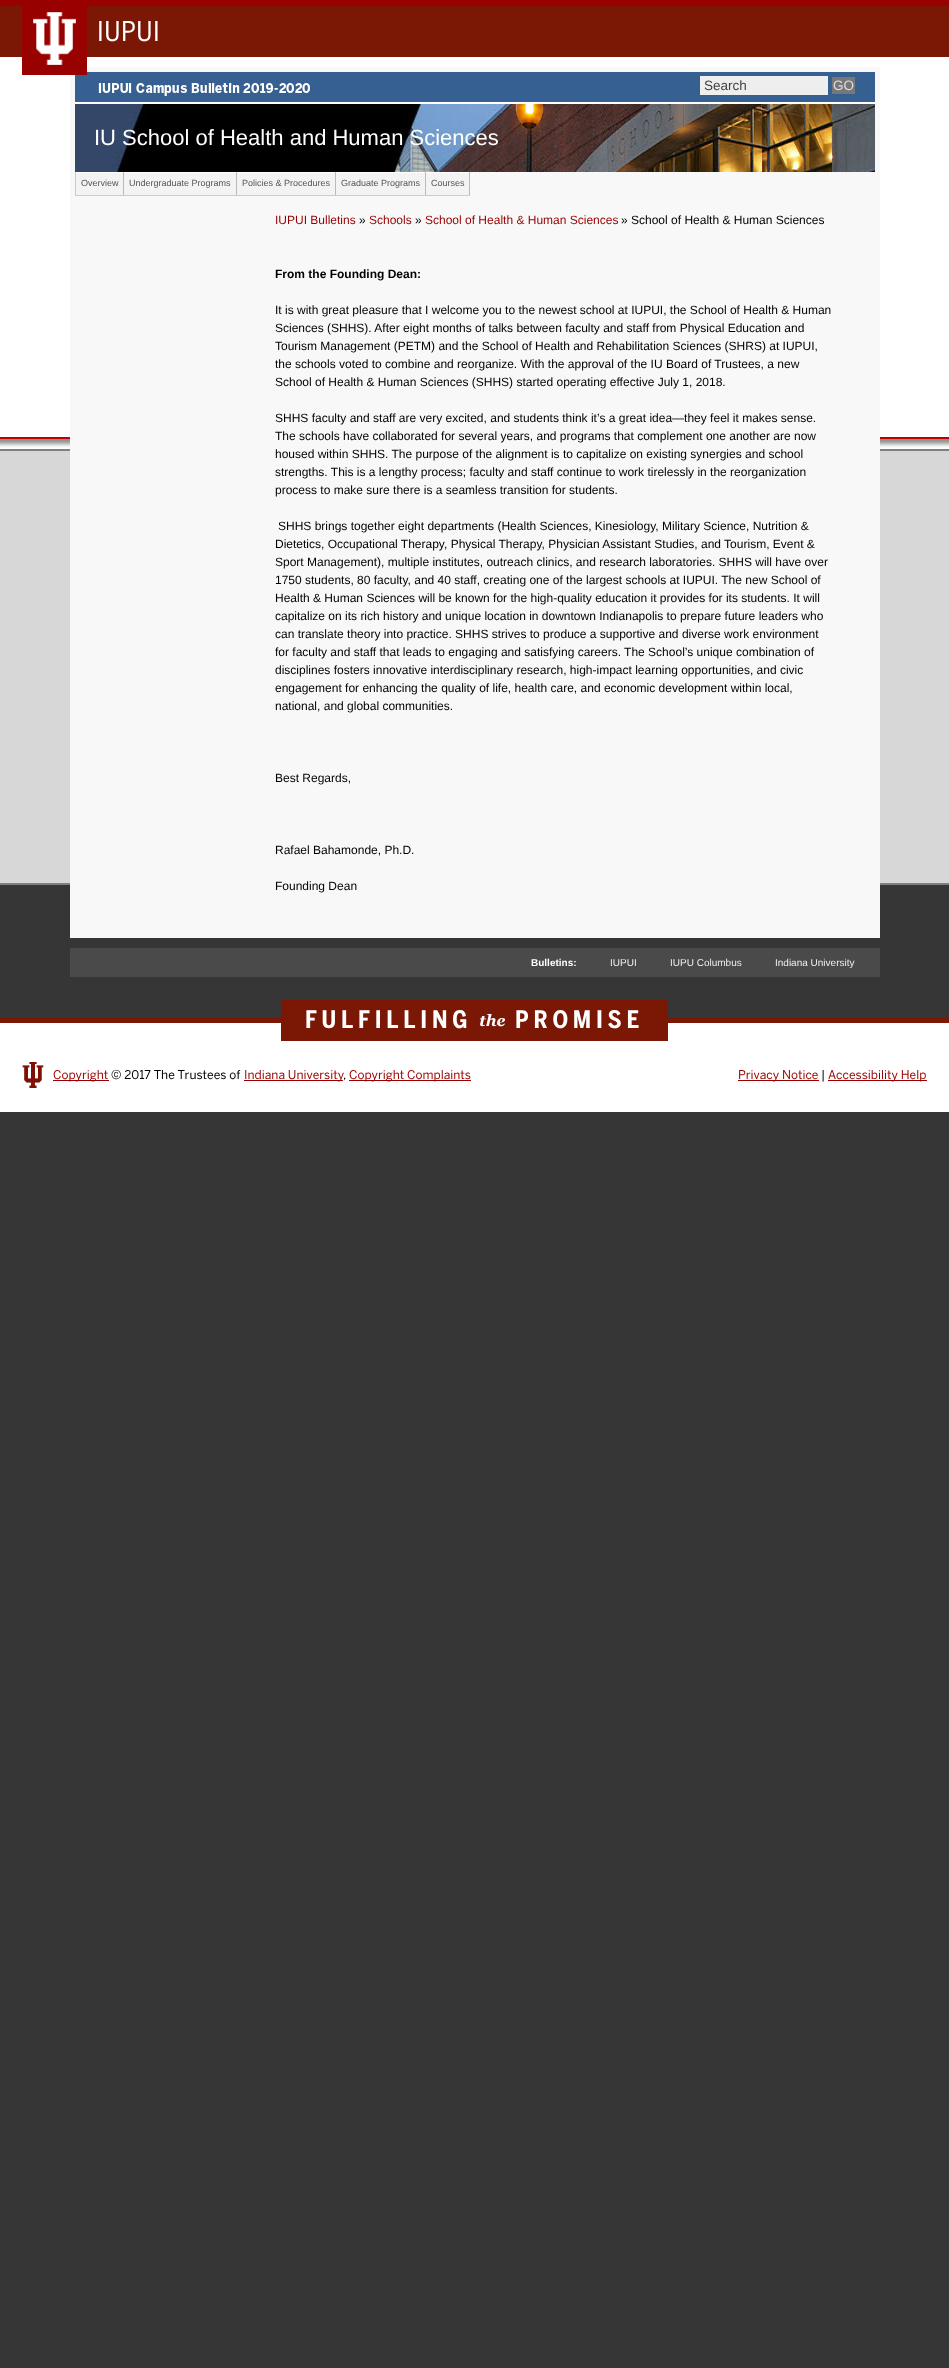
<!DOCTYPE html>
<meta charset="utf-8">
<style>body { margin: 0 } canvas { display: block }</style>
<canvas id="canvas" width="949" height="2368"></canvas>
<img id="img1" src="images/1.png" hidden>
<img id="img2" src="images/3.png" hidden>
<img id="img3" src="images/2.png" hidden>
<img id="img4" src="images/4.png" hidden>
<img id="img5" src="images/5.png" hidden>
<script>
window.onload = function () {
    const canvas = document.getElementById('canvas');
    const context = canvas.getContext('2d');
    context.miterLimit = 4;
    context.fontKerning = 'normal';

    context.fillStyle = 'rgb(54, 54, 54)';
    context.fillRect(0, 0, 949, 2368);
    context.drawImage(document.getElementById('img1'), 0, 57, 949, 828);
    context.fillStyle = 'rgb(122, 23, 5)';
    context.fillRect(0, 6, 949, 51);
    context.fillStyle = 'rgb(153, 0, 0)';
    context.fillRect(0, 0, 949, 6);
    context.fillStyle = 'rgb(248, 248, 248)';
    context.fillRect(70, 67, 810, 871);
    context.drawImage(document.getElementById('img2'), 75, 72, 800, 30);
    context.drawImage(document.getElementById('img3'), 22, 6, 65, 69);
    context.fillStyle = 'rgb(238, 238, 238)';
    context.fillRect(700, 76, 128, 19);
    context.fillStyle = 'rgb(119, 119, 119)';
    context.fillRect(832, 77, 23, 17);
    context.drawImage(document.getElementById('img4'), 75, 104, 800, 68);
    context.fillStyle = 'rgb(255, 255, 255)';
    context.fillRect(75, 102, 800, 2);
    context.fillRect(75, 172, 395, 1);
    context.fillStyle = 'rgb(187, 187, 187)';
    context.fillRect(123, 172, 1, 24);
    context.fillStyle = 'rgb(204, 204, 204)';
    context.fillRect(75, 195, 49, 1);
    context.fillRect(75, 172, 1, 24);
    context.fillStyle = 'rgb(243, 243, 243)';
    context.fillRect(76, 173, 47, 22);
    context.fillStyle = 'rgb(187, 187, 187)';
    context.fillRect(236, 172, 1, 24);
    context.fillStyle = 'rgb(204, 204, 204)';
    context.fillRect(124, 195, 113, 1);
    context.fillStyle = 'rgb(243, 243, 243)';
    context.fillRect(124, 173, 112, 22);
    context.fillStyle = 'rgb(187, 187, 187)';
    context.fillRect(335, 172, 1, 24);
    context.fillStyle = 'rgb(204, 204, 204)';
    context.fillRect(237, 195, 99, 1);
    context.fillStyle = 'rgb(243, 243, 243)';
    context.fillRect(237, 173, 98, 22);
    context.fillStyle = 'rgb(187, 187, 187)';
    context.fillRect(425, 172, 1, 24);
    context.fillStyle = 'rgb(204, 204, 204)';
    context.fillRect(336, 195, 90, 1);
    context.fillStyle = 'rgb(243, 243, 243)';
    context.fillRect(336, 173, 89, 22);
    context.fillStyle = 'rgb(187, 187, 187)';
    context.fillRect(469, 172, 1, 24);
    context.fillStyle = 'rgb(204, 204, 204)';
    context.fillRect(426, 195, 44, 1);
    context.fillStyle = 'rgb(243, 243, 243)';
    context.fillRect(426, 173, 43, 22);
    context.fillStyle = 'rgb(74, 74, 74)';
    context.fillRect(70, 948, 810, 29);
    context.fillStyle = 'rgb(255, 255, 255)';
    context.fillRect(0, 1023, 949, 89);
    context.fillStyle = 'rgb(122, 23, 5)';
    context.fillRect(0, 1017, 949, 6);
    context.fillRect(281, 1000, 387, 41);
    context.drawImage(document.getElementById('img5'), 22, 1062, 22, 26);
    context.fillStyle = 'rgb(153, 0, 0)';
    context.fillRect(53, 1080, 56, 1);
    context.fillRect(244, 1080, 99, 1);
    context.fillRect(349, 1080, 122, 1);
    context.fillRect(738, 1080, 81, 1);
    context.fillRect(828, 1080, 99, 1);
    context.letterSpacing = '0.5px';
    context.font = '27px "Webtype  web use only"';
    context.fillStyle = 'rgb(255, 255, 255)';
    context.fillText('IUPUI', 97, 41);
    context.letterSpacing = '0px';
    context.font = '13.5px Liberation Sans';
    context.fillStyle = 'rgb(68, 68, 68)';
    context.fillText('Search', 704, 90);
    context.fillStyle = 'rgb(221, 221, 221)';
    context.fillText('GO', 833, 90);
    context.font = '22px Liberation Sans';
    context.fillStyle = 'rgb(255, 255, 255)';
    context.fillText('IU School of Health and Human Sciences', 94, 145);
    context.font = '9px Liberation Sans';
    context.fillStyle = 'rgb(85, 85, 85)';
    context.fillText('Overview', 81, 186);
    context.fillText('Undergraduate Programs', 129, 186);
    context.fillText('Policies & Procedures', 242, 186);
    context.fillText('Graduate Programs', 341, 186);
    context.fillText('Courses', 431, 186);
    context.font = '12px Liberation Sans';
    context.fillStyle = 'rgb(153, 0, 0)';
    context.fillText('IUPUI Bulletins', 275, 224);
    context.fillStyle = 'rgb(0, 0, 0)';
    context.fillText('»', 359, 224);
    context.fillStyle = 'rgb(153, 0, 0)';
    context.fillText('Schools', 369, 224);
    context.fillStyle = 'rgb(0, 0, 0)';
    context.fillText('»', 415, 224);
    context.fillStyle = 'rgb(153, 0, 0)';
    context.fillText('School of Health & Human Sciences', 425, 224);
    context.fillStyle = 'rgb(0, 0, 0)';
    context.fillText('» School of Health & Human Sciences', 621, 224);
    context.font = 'bold 12px Liberation Sans';
    context.fillText('From the Founding Dean:', 275, 278);
    context.font = '12px Liberation Sans';
    context.fillText('It is with great pleasure that I welcome you to the newest school at IUPUI, the School of Health & Human', 275, 314);
    context.fillText('Sciences (SHHS). After eight months of talks between faculty and staff from Physical Education and', 275, 332);
    context.fillText('Tourism Management (PETM) and the School of Health and Rehabilitation Sciences (SHRS) at IUPUI,', 275, 350);
    context.fillText('the schools voted to combine and reorganize. With the approval of the IU Board of Trustees, a new', 275, 368);
    context.fillText('School of Health & Human Sciences (SHHS) started operating effective July 1, 2018.', 275, 386);
    context.fillText('SHHS faculty and staff are very excited, and students think it’s a great idea—they feel it makes sense.', 275, 422);
    context.fillText('The schools have collaborated for several years, and programs that complement one another are now', 275, 440);
    context.fillText('housed within SHHS. The purpose of the alignment is to capitalize on existing synergies and school', 275, 458);
    context.fillText('strengths. This is a lengthy process; faculty and staff continue to work tirelessly in the reorganization', 275, 476);
    context.fillText('process to make sure there is a seamless transition for students.', 275, 494);
    context.fillText('SHHS brings together eight departments (Health Sciences, Kinesiology, Military Science, Nutrition &', 278, 530);
    context.fillText('Dietetics, Occupational Therapy, Physical Therapy, Physician Assistant Studies, and Tourism, Event &', 275, 548);
    context.fillText('Sport Management), multiple institutes, outreach clinics, and research laboratories. SHHS will have over', 275, 566);
    context.fillText('1750 students, 80 faculty, and 40 staff, creating one of the largest schools at IUPUI. The new School of', 275, 584);
    context.fillText('Health & Human Sciences will be known for the high-quality education it provides for its students. It will', 275, 602);
    context.fillText('capitalize on its rich history and unique location in downtown Indianapolis to prepare future leaders who', 275, 620);
    context.fillText('can translate theory into practice. SHHS strives to produce a supportive and diverse work environment', 275, 638);
    context.fillText('for faculty and staff that leads to engaging and satisfying careers. The School’s unique combination of', 275, 656);
    context.fillText('disciplines fosters innovative interdisciplinary research, high-impact learning opportunities, and civic', 275, 674);
    context.fillText('engagement for enhancing the quality of life, health care, and economic development within local,', 275, 692);
    context.fillText('national, and global communities.', 275, 710);
    context.fillText('Best Regards,', 275, 782);
    context.fillText('Rafael Bahamonde, Ph.D.', 275, 854);
    context.fillText('Founding Dean', 275, 890);
    context.font = 'bold 10px Liberation Sans';
    context.fillStyle = 'rgb(255, 255, 255)';
    context.fillText('Bulletins:', 531, 966);
    context.font = '10px Liberation Sans';
    context.fillStyle = 'rgb(238, 238, 238)';
    context.fillText('IUPUI', 610, 966);
    context.fillText('IUPU Columbus', 670, 966);
    context.fillText('Indiana University', 775, 966);
    context.letterSpacing = '4.75px';
    context.font = 'bold 24px "Webtype  web use only"';
    context.fillStyle = 'rgb(255, 255, 255)';
    context.fillText('FULFILLING', 305, 1028);
    context.letterSpacing = '0px';
    context.font = 'italic bold 16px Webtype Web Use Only';
    context.fillText('the', 479, 1026);
    context.letterSpacing = '4.75px';
    context.font = 'bold 24px "Webtype  web use only"';
    context.fillText('PROMISE', 515, 1028);
    context.letterSpacing = '0px';
    context.font = '12px "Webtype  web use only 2"';
    context.fillStyle = 'rgb(153, 0, 0)';
    context.fillText('Copyright', 53, 1079);
    context.fillStyle = 'rgb(0, 0, 0)';
    context.fillText('© 2017 The Trustees of', 111, 1079);
    context.fillStyle = 'rgb(153, 0, 0)';
    context.fillText('Indiana University', 244, 1079);
    context.fillStyle = 'rgb(0, 0, 0)';
    context.fillText(',', 343, 1079);
    context.fillStyle = 'rgb(153, 0, 0)';
    context.fillText('Copyright Complaints', 349, 1079);
    context.fillText('Privacy Notice', 738, 1079);
    context.fillStyle = 'rgb(0, 0, 0)';
    context.fillText('|', 821, 1079);
    context.fillStyle = 'rgb(153, 0, 0)';
    context.fillText('Accessibility Help', 828, 1079);
};
</script>
